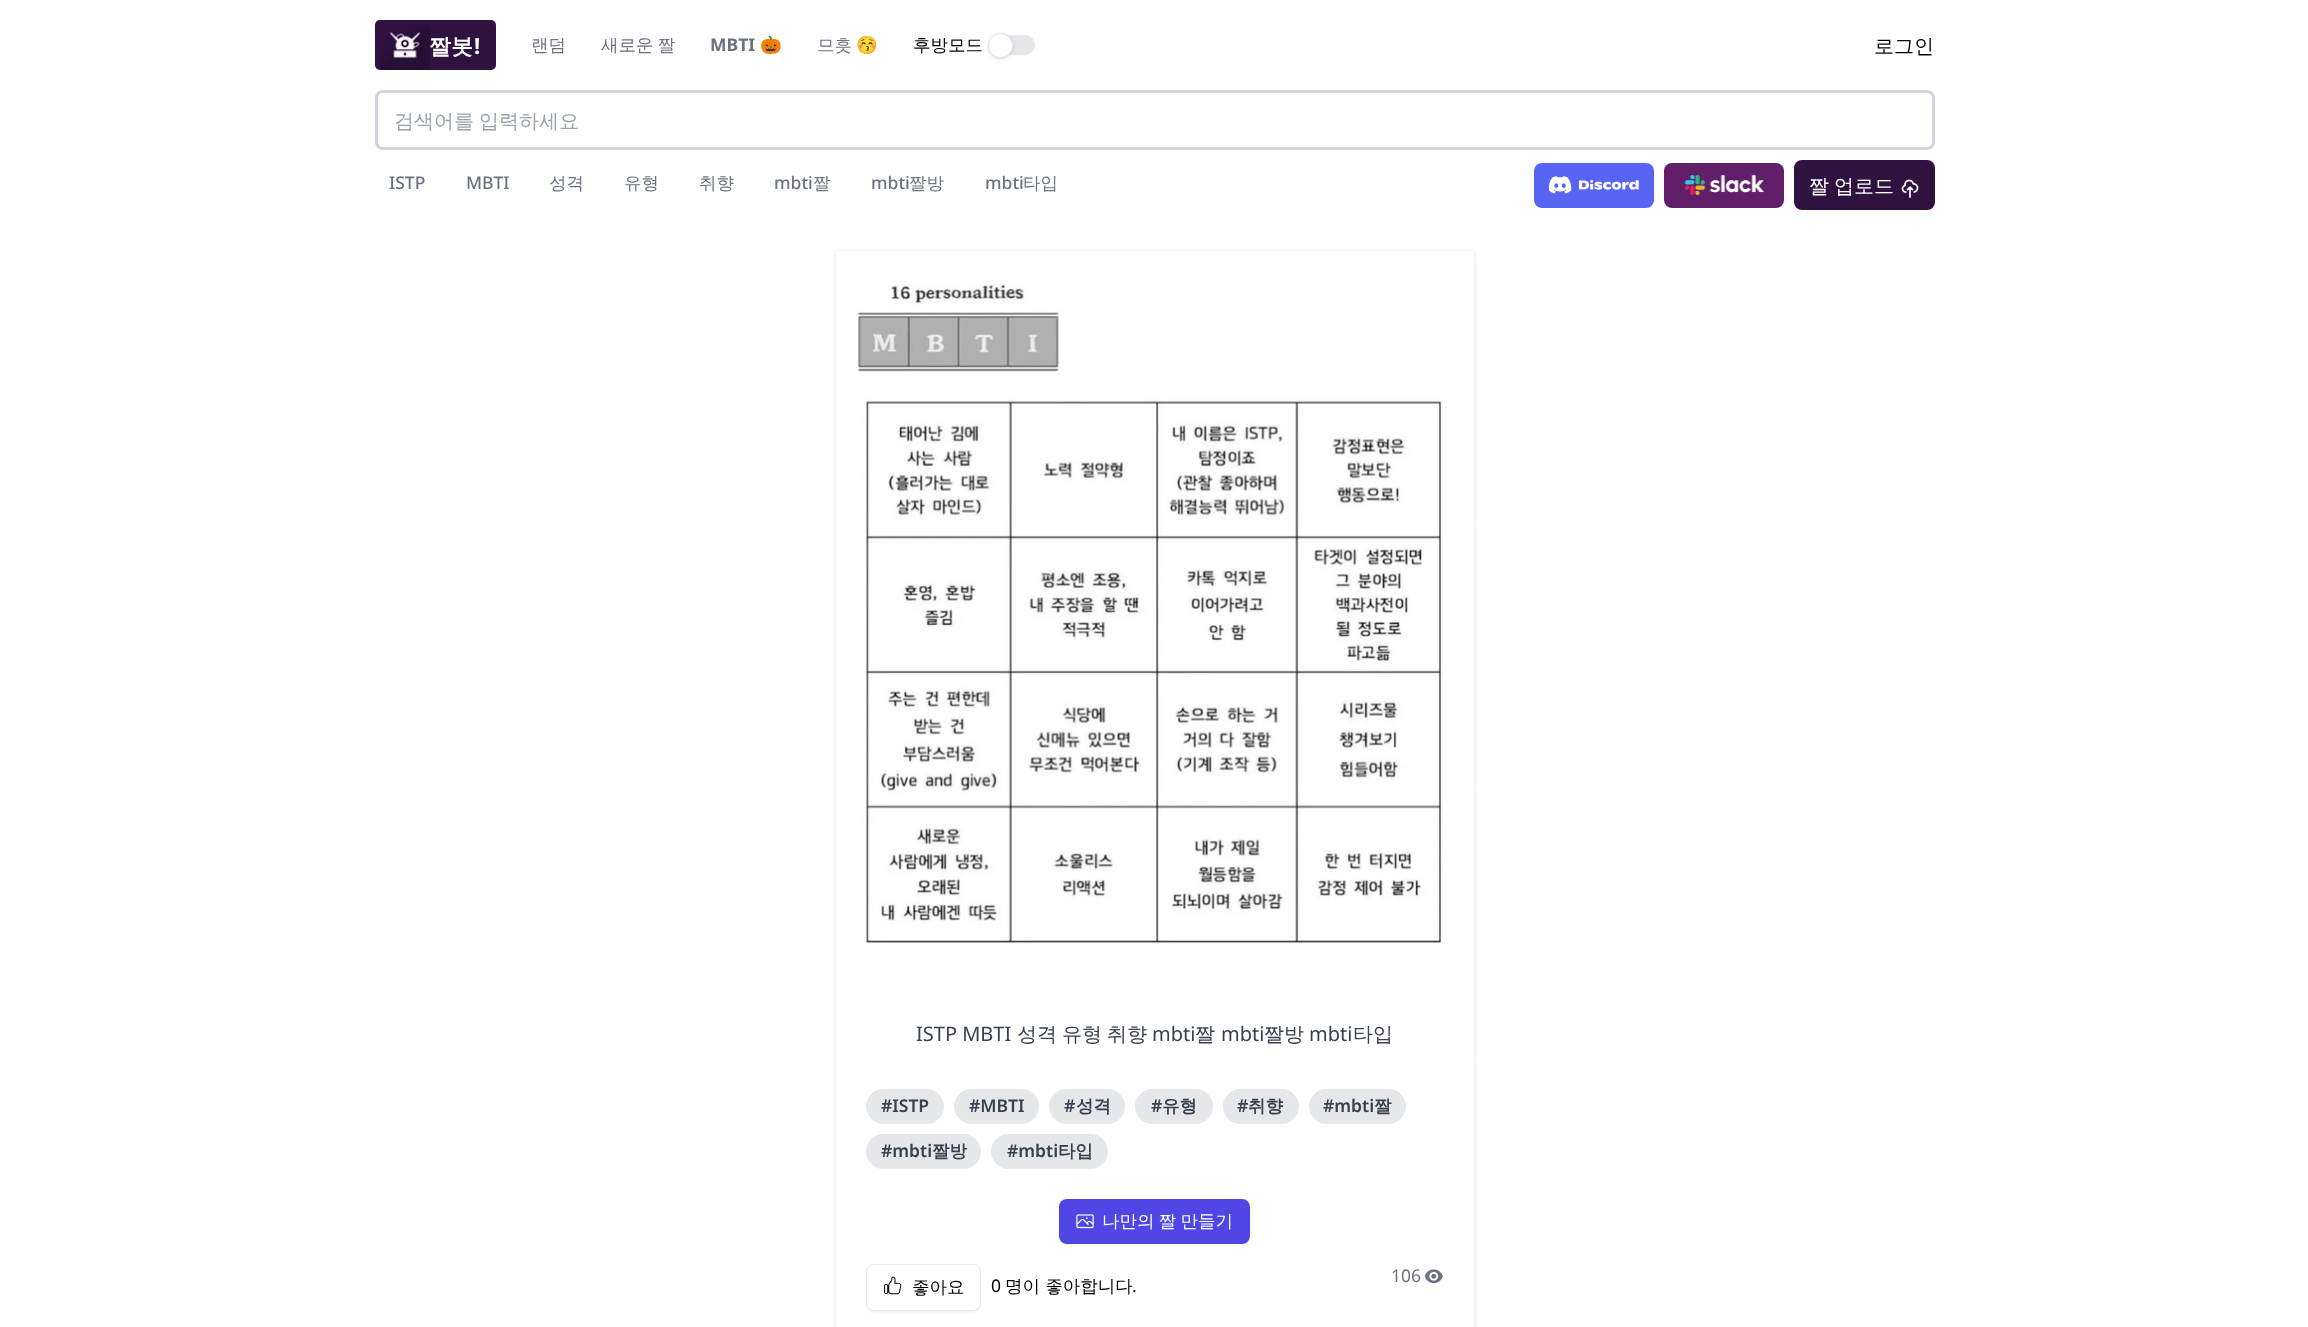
<!DOCTYPE html>
<meta charset="utf-8">
<style>body { margin: 0 } canvas { display: block }</style>
<canvas id="canvas" width="2308" height="1327"></canvas>
<img id="img1" src="images/1.png" hidden>
<img id="img2" src="images/2.png" hidden>
<img id="img3" src="images/3.png" hidden>
<img id="img4" src="images/4.png" hidden>
<img id="img5" src="images/5.png" hidden>
<img id="img6" src="images/6.png" hidden>
<img id="img7" src="images/7.png" hidden>
<img id="img8" src="images/8.png" hidden>
<script>
window.onload = function () {
    const canvas = document.getElementById('canvas');
    const context = canvas.getContext('2d');
    context.miterLimit = 4;
    context.fontKerning = 'normal';

    context.fillStyle = 'rgb(255, 255, 255)';
    context.fillRect(0, 0, 2308, 1327);
    context.fillStyle = 'rgb(47, 18, 64)';
    context.beginPath();
    context.roundRect(375, 20, 121, 50, 5);
    context.fill();
    context.drawImage(document.getElementById('img1'), 380, 24, 50, 46);
    context.fillStyle = 'rgb(229, 231, 235)';
    context.beginPath();
    context.roundRect(990, 35, 45, 20, 10);
    context.fill();
    context.fillStyle = 'rgba(0, 0, 0, 0.1)';
    context.filter = 'blur(1px)';
    context.beginPath();
    context.roundRect(989, 35, 22, 23, 11);
    context.fill();
    context.filter = 'none';
    context.filter = 'blur(2px)';
    context.beginPath();
    context.roundRect(988, 34, 25, 25, 12.5);
    context.fill();
    context.filter = 'none';
    context.fillStyle = 'rgb(255, 255, 255)';
    context.beginPath();
    context.arc(1000.5, 45.5, 12, 0, 2 * Math.PI);
    context.fill();
    context.strokeStyle = 'rgb(229, 231, 235)';
    context.stroke();
    context.beginPath();
    context.roundRect(376.5, 91.5, 1557, 57, 6.5);
    context.strokeStyle = 'rgb(209, 213, 219)';
    context.lineWidth = 3;
    context.stroke();
    context.fillStyle = 'rgb(88, 101, 242)';
    context.beginPath();
    context.roundRect(1534, 163, 120, 45, 8);
    context.fill();
    context.drawImage(document.getElementById('img2'), 1549, 176, 90, 18);
    context.fillStyle = 'rgb(97, 31, 105)';
    context.beginPath();
    context.roundRect(1664, 163, 120, 45, 8);
    context.fill();
    context.drawImage(document.getElementById('img3'), 1684, 175, 80, 20);
    context.fillStyle = 'rgb(47, 18, 64)';
    context.beginPath();
    context.roundRect(1794, 160, 141, 50, 8);
    context.fill();
    context.drawImage(document.getElementById('img4'), 1901, 179, 18, 19);
    context.save();
    context.beginPath();
    context.moveTo(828, 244);
    context.lineTo(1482, 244);
    context.lineTo(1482, 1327);
    context.lineTo(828, 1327);
    context.closePath();
    context.moveTo(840, 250);
    context.lineTo(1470, 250);
    context.bezierCurveTo(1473, 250, 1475, 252, 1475, 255);
    context.lineTo(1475, 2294);
    context.bezierCurveTo(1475, 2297, 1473, 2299, 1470, 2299);
    context.lineTo(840, 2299);
    context.bezierCurveTo(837, 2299, 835, 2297, 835, 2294);
    context.lineTo(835, 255);
    context.bezierCurveTo(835, 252, 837, 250, 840, 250);
    context.closePath();
    context.clip('evenodd');
    context.fillStyle = 'rgba(0, 0, 0, 0.1)';
    context.filter = 'blur(2px)';
    context.beginPath();
    context.roundRect(835, 251, 640, 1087, 5);
    context.fill();
    context.filter = 'none';
    context.restore();
    context.beginPath();
    context.roundRect(835.5, 250.5, 639, 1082, 4.5);
    context.strokeStyle = 'rgb(243, 244, 246)';
    context.lineWidth = 1;
    context.stroke();
    context.drawImage(document.getElementById('img5'), 855, 283, 587, 660);
    context.fillStyle = 'rgb(229, 231, 235)';
    context.beginPath();
    context.roundRect(866, 1089, 78, 35, 17.5);
    context.fill();
    context.beginPath();
    context.roundRect(954, 1089, 85, 35, 17.5);
    context.fill();
    context.beginPath();
    context.roundRect(1049, 1089, 76, 35, 17.5);
    context.fill();
    context.beginPath();
    context.roundRect(1135, 1089, 78, 35, 17.5);
    context.fill();
    context.beginPath();
    context.roundRect(1223, 1089, 76, 35, 17.5);
    context.fill();
    context.beginPath();
    context.roundRect(1309, 1089, 97, 35, 17.5);
    context.fill();
    context.beginPath();
    context.roundRect(866, 1134, 115, 35, 17.5);
    context.fill();
    context.beginPath();
    context.roundRect(991, 1134, 117, 35, 17.5);
    context.fill();
    context.fillStyle = 'rgba(0, 0, 0, 0.05)';
    context.filter = 'blur(1px)';
    context.beginPath();
    context.roundRect(1059, 1200, 191, 45, 8);
    context.fill();
    context.filter = 'none';
    context.fillStyle = 'rgb(79, 70, 229)';
    context.beginPath();
    context.roundRect(1059, 1199, 191, 45, 8);
    context.fill();
    context.drawImage(document.getElementById('img6'), 1076, 1214, 18, 15);
    context.drawImage(document.getElementById('img7'), 1424, 1269, 19, 15);
    context.save();
    context.beginPath();
    context.moveTo(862, 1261);
    context.lineTo(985, 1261);
    context.lineTo(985, 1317);
    context.lineTo(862, 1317);
    context.closePath();
    context.moveTo(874, 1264);
    context.lineTo(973, 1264);
    context.bezierCurveTo(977.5, 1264, 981, 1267.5, 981, 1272);
    context.lineTo(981, 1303);
    context.bezierCurveTo(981, 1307.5, 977.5, 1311, 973, 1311);
    context.lineTo(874, 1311);
    context.bezierCurveTo(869.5, 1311, 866, 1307.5, 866, 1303);
    context.lineTo(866, 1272);
    context.bezierCurveTo(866, 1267.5, 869.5, 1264, 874, 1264);
    context.closePath();
    context.clip('evenodd');
    context.fillStyle = 'rgba(0, 0, 0, 0.05)';
    context.filter = 'blur(1px)';
    context.beginPath();
    context.roundRect(866, 1265, 115, 48, 8);
    context.fill();
    context.filter = 'none';
    context.restore();
    context.beginPath();
    context.roundRect(866.5, 1264.5, 114, 46, 7.5);
    context.strokeStyle = 'rgb(229, 231, 235)';
    context.stroke();
    context.drawImage(document.getElementById('img8'), 884, 1276, 18, 19);
    context.font = 'bold 22px WenQuanYi Zen Hei';
    context.fillStyle = 'rgb(255, 255, 255)';
    context.fillText('짤봇', 429, 54);
    context.font = 'bold 22px Noto Sans';
    context.fillText('!', 474, 54);
    context.font = '500 17.5px WenQuanYi Zen Hei';
    context.fillStyle = 'rgb(107, 114, 128)';
    context.fillText('랜덤', 531, 51);
    context.wordSpacing = '-1px';
    context.fillText('새로운 짤', 601, 51);
    context.wordSpacing = '0px';
    context.font = 'bold 17.5px Noto Sans';
    context.fillText('MBTI', 710, 51);
    context.font = 'bold 17.5px Noto Color Emoji';
    context.fillText('🎃', 760, 51);
    context.font = '500 17.5px WenQuanYi Zen Hei';
    context.fillText('므흣', 817, 51);
    context.font = '17.5px Noto Color Emoji';
    context.fillText('😚', 856, 51);
    context.font = '500 17.5px WenQuanYi Zen Hei';
    context.fillStyle = 'rgb(0, 0, 0)';
    context.fillText('후방모드', 913, 51);
    context.font = '500 20px WenQuanYi Zen Hei';
    context.fillText('로그인', 1874, 53);
    context.wordSpacing = '-1px';
    context.fillStyle = 'rgb(156, 163, 175)';
    context.fillText('검색어를 입력하세요', 394, 128);
    context.wordSpacing = '0px';
    context.font = '500 17.5px Noto Sans';
    context.fillStyle = 'rgb(107, 114, 128)';
    context.fillText('ISTP', 389, 189);
    context.fillText('MBTI', 466, 189);
    context.font = '500 17.5px WenQuanYi Zen Hei';
    context.fillText('성격', 549, 189);
    context.fillText('유형', 624, 189);
    context.fillText('취향', 699, 189);
    context.font = '500 17.5px Noto Sans';
    context.fillText('mbti', 774, 189);
    context.font = '500 17.5px WenQuanYi Zen Hei';
    context.fillText('짤', 813, 189);
    context.font = '500 17.5px Noto Sans';
    context.fillText('mbti', 871, 189);
    context.font = '500 17.5px WenQuanYi Zen Hei';
    context.fillText('짤방', 909, 189);
    context.font = '500 17.5px Noto Sans';
    context.fillText('mbti', 985, 189);
    context.font = '500 17.5px WenQuanYi Zen Hei';
    context.fillText('타입', 1023, 189);
    context.wordSpacing = '-1px';
    context.font = '500 20px WenQuanYi Zen Hei';
    context.fillStyle = 'rgb(255, 255, 255)';
    context.fillText('짤 업로드', 1809, 193);
    context.wordSpacing = '0px';
    context.font = '20px Noto Sans';
    context.fillStyle = 'rgb(55, 65, 81)';
    context.fillText('ISTP MBTI', 916, 1041);
    context.font = '500 20px WenQuanYi Zen Hei';
    context.fillText('성격', 1017, 1041);
    context.fillText('유형', 1062, 1041);
    context.fillText('취향', 1107, 1041);
    context.font = '20px Noto Sans';
    context.fillText('mbti', 1152, 1041);
    context.font = '500 20px WenQuanYi Zen Hei';
    context.fillText('짤', 1195, 1041);
    context.font = '20px Noto Sans';
    context.fillText('mbti', 1221, 1041);
    context.font = '500 20px WenQuanYi Zen Hei';
    context.fillText('짤방', 1264, 1041);
    context.font = '20px Noto Sans';
    context.fillText('mbti', 1309, 1041);
    context.font = '500 20px WenQuanYi Zen Hei';
    context.fillText('타입', 1353, 1041);
    context.font = '600 17.5px Noto Sans';
    context.fillText('#ISTP', 881, 1112);
    context.fillText('#MBTI', 969, 1112);
    context.fillText('#', 1064, 1112);
    context.font = 'bold 17.5px WenQuanYi Zen Hei';
    context.fillText('성격', 1076, 1112);
    context.font = '600 17.5px Noto Sans';
    context.fillText('#', 1151, 1112);
    context.font = 'bold 17.5px WenQuanYi Zen Hei';
    context.fillText('유형', 1162, 1112);
    context.font = '600 17.5px Noto Sans';
    context.fillText('#', 1237, 1112);
    context.font = 'bold 17.5px WenQuanYi Zen Hei';
    context.fillText('취향', 1248, 1112);
    context.font = '600 17.5px Noto Sans';
    context.fillText('#mbti', 1323, 1112);
    context.font = 'bold 17.5px WenQuanYi Zen Hei';
    context.fillText('짤', 1374, 1112);
    context.font = '600 17.5px Noto Sans';
    context.fillText('#mbti', 881, 1157);
    context.font = 'bold 17.5px WenQuanYi Zen Hei';
    context.fillText('짤방', 932, 1157);
    context.font = '600 17.5px Noto Sans';
    context.fillText('#mbti', 1007, 1157);
    context.font = 'bold 17.5px WenQuanYi Zen Hei';
    context.fillText('타입', 1058, 1157);
    context.wordSpacing = '-1px';
    context.font = '500 17.5px WenQuanYi Zen Hei';
    context.fillStyle = 'rgb(255, 255, 255)';
    context.fillText('나만의 짤 만들기', 1102, 1227);
    context.wordSpacing = '0px';
    context.font = '17.5px Noto Sans';
    context.fillStyle = 'rgb(107, 114, 128)';
    context.fillText('106', 1391, 1282);
    context.font = '500 17.5px WenQuanYi Zen Hei';
    context.fillStyle = 'rgb(0, 0, 0)';
    context.fillText('좋아요', 912, 1293);
    context.font = '17.5px Noto Sans';
    context.fillText('0', 991, 1292);
    context.font = '500 17.5px WenQuanYi Zen Hei';
    context.fillText('명이 좋아합니다', 1005, 1292);
    context.font = '17.5px Noto Sans';
    context.fillText('.', 1132, 1292);
};
</script>
